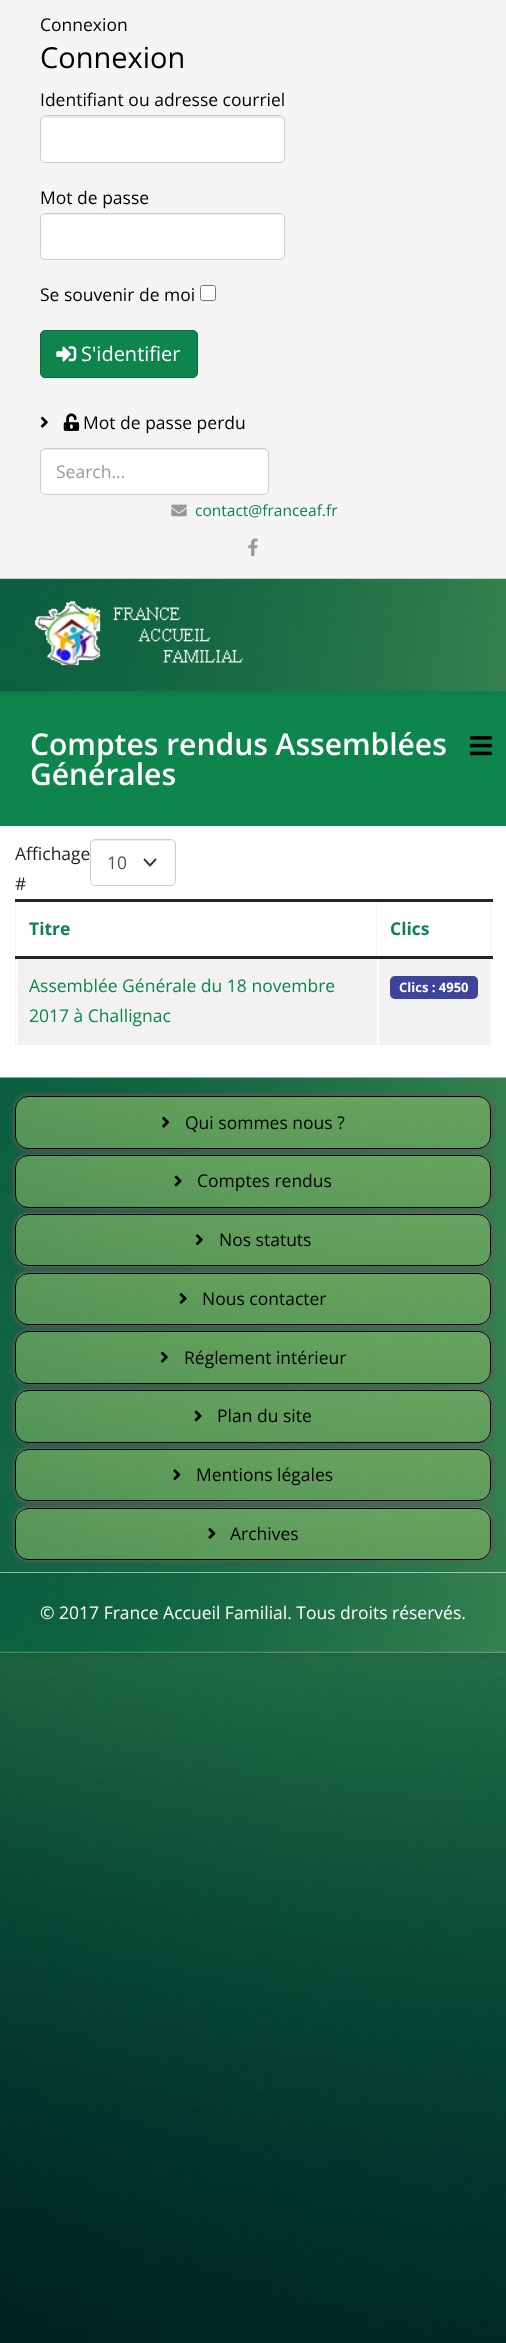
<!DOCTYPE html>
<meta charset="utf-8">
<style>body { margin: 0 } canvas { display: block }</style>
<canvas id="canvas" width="506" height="2343"></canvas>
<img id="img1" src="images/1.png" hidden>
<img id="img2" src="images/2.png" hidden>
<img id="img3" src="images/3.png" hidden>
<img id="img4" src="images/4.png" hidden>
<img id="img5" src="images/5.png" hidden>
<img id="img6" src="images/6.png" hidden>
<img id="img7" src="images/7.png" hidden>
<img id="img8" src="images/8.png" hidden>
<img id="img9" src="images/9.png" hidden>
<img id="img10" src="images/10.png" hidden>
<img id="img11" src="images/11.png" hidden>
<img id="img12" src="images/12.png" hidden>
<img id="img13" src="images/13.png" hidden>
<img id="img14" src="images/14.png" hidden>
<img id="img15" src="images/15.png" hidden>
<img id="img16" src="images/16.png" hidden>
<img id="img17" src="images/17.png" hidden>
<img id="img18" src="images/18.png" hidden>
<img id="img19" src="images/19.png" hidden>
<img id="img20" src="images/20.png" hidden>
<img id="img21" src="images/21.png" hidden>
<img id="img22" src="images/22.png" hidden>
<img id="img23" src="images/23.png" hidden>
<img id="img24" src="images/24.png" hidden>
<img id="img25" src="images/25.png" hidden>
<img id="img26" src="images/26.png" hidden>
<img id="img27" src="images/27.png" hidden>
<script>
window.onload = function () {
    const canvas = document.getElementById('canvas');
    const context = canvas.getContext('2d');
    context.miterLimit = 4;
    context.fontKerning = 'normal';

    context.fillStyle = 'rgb(255, 255, 255)';
    context.fillRect(0, 0, 506, 2343);
    context.drawImage(document.getElementById('img1'), 0, 1653, 506, 690);
    context.fillStyle = 'rgba(0, 0, 0, 0.2)';
    context.filter = 'blur(3px)';
    context.beginPath();
    context.rect(0, 0, 506, 1653);
    context.fill();
    context.filter = 'none';
    context.fillStyle = 'rgb(255, 255, 255)';
    context.fillRect(0, 826, 506, 827);
    context.fillStyle = 'rgb(245, 245, 245)';
    context.fillRect(0, 0, 506, 579);
    context.fillStyle = 'rgb(255, 255, 255)';
    context.beginPath();
    context.roundRect(40, 115, 245, 48, 5);
    context.fill();
    context.fillStyle = 'rgb(236, 236, 236)';
    context.beginPath();
    context.moveTo(45, 118);
    context.lineTo(280, 118);
    context.bezierCurveTo(282, 118, 284, 119, 284, 121);
    context.lineTo(284, 120);
    context.bezierCurveTo(284, 118, 282, 116, 280, 116);
    context.lineTo(45, 116);
    context.bezierCurveTo(43, 116, 41, 118, 41, 120);
    context.lineTo(41, 121);
    context.bezierCurveTo(41, 119, 43, 118, 45, 118);
    context.closePath();
    context.fill();
    context.beginPath();
    context.roundRect(40.5, 115.5, 244, 47, 4.5);
    context.strokeStyle = 'rgb(204, 204, 204)';
    context.stroke();
    context.fillStyle = 'rgb(255, 255, 255)';
    context.beginPath();
    context.roundRect(40, 213, 245, 47, 5);
    context.fill();
    context.fillStyle = 'rgb(236, 236, 236)';
    context.beginPath();
    context.moveTo(45, 215);
    context.lineTo(280, 215);
    context.bezierCurveTo(282, 215, 284, 217, 284, 219);
    context.lineTo(284, 218);
    context.bezierCurveTo(284, 216, 282, 214, 280, 214);
    context.lineTo(45, 214);
    context.bezierCurveTo(43, 214, 41, 216, 41, 218);
    context.lineTo(41, 219);
    context.bezierCurveTo(41, 217, 43, 215, 45, 215);
    context.closePath();
    context.fill();
    context.beginPath();
    context.roundRect(40.5, 213.5, 244, 46, 4.5);
    context.stroke();
    context.fillStyle = 'rgb(255, 255, 255)';
    context.beginPath();
    context.roundRect(200.5, 285.5, 15, 15, 2);
    context.fill();
    context.strokeStyle = 'rgb(118, 118, 118)';
    context.stroke();
    context.fillStyle = 'rgb(13, 133, 77)';
    context.beginPath();
    context.roundRect(40.5, 330.5, 157, 47, 4.5);
    context.fill();
    context.strokeStyle = 'rgb(10, 105, 61)';
    context.stroke();
    context.drawImage(document.getElementById('img2'), 56, 346, 21, 16);
    context.drawImage(document.getElementById('img3'), 40, 416, 8, 12);
    context.drawImage(document.getElementById('img4'), 63, 413, 17, 18);
    context.fillStyle = 'rgb(255, 255, 255)';
    context.beginPath();
    context.roundRect(40, 448, 229, 47, 5);
    context.fill();
    context.fillStyle = 'rgb(236, 236, 236)';
    context.beginPath();
    context.moveTo(45, 450);
    context.lineTo(264, 450);
    context.bezierCurveTo(266, 450, 268, 452, 268, 454);
    context.bezierCurveTo(268, 451, 267, 449, 264, 449);
    context.lineTo(45, 449);
    context.bezierCurveTo(42, 449, 41, 451, 41, 454);
    context.bezierCurveTo(41, 452, 43, 450, 45, 450);
    context.closePath();
    context.fill();
    context.beginPath();
    context.roundRect(40.5, 448.5, 228, 46, 4.5);
    context.strokeStyle = 'rgb(204, 204, 204)';
    context.stroke();
    context.drawImage(document.getElementById('img5'), 171, 504, 16, 13);
    context.drawImage(document.getElementById('img6'), 248, 538, 10, 18);
    context.fillStyle = 'rgb(13, 133, 77)';
    context.fillRect(0, 691, 506, 135);
    context.fillStyle = 'rgba(0, 0, 0, 0.05)';
    context.filter = 'blur(2px)';
    context.beginPath();
    context.rect(0, 583, 506, 112);
    context.fill();
    context.filter = 'none';
    context.drawImage(document.getElementById('img7'), 0, 578, 506, 114);
    context.drawImage(document.getElementById('img8'), 34, 601, 209, 65);
    context.drawImage(document.getElementById('img9'), 470, 736, 22, 20);
    context.beginPath();
    context.moveTo(144.5, 859.5);
    context.lineTo(150, 865.5);
    context.lineTo(155.5, 859.5);
    context.strokeStyle = 'rgb(52, 58, 64)';
    context.lineWidth = 1.9;
    context.lineCap = 'round';
    context.lineJoin = 'round';
    context.stroke();
    context.fillStyle = 'rgb(236, 236, 236)';
    context.beginPath();
    context.moveTo(95, 841);
    context.lineTo(171, 841);
    context.bezierCurveTo(173, 841, 175, 843, 175, 845);
    context.bezierCurveTo(175, 837, 163, 840, 158, 840);
    context.lineTo(108, 840);
    context.bezierCurveTo(103, 840, 91, 837, 91, 845);
    context.bezierCurveTo(91, 843, 93, 841, 95, 841);
    context.closePath();
    context.fill();
    context.beginPath();
    context.roundRect(90.5, 839.5, 85, 46, 4.5);
    context.strokeStyle = 'rgb(204, 204, 204)';
    context.lineWidth = 1;
    context.lineJoin = 'miter';
    context.stroke();
    context.fillStyle = 'rgb(242, 242, 242)';
    context.fillRect(490, 899, 1, 146);
    context.fillRect(15, 1044, 476, 1);
    context.fillRect(15, 899, 1, 146);
    context.fillRect(376, 899, 1, 146);
    context.fillStyle = 'rgb(33, 37, 41)';
    context.fillRect(15, 899, 478, 3);
    context.fillRect(15, 956, 478, 3);
    context.fillStyle = 'rgb(242, 242, 242)';
    context.fillRect(18, 959, 358, 85);
    context.fillRect(379, 959, 111, 85);
    context.fillStyle = 'rgb(61, 68, 154)';
    context.beginPath();
    context.roundRect(390, 976, 88, 23, 5);
    context.fill();
    context.drawImage(document.getElementById('img10'), 0, 1077, 506, 495);
    context.fillStyle = 'rgb(92, 92, 92)';
    context.filter = 'blur(2.5px)';
    context.beginPath();
    context.roundRect(14, 1095, 479, 55, 14);
    context.fill();
    context.filter = 'none';
    context.drawImage(document.getElementById('img11'), 15, 1095, 476, 54);
    context.beginPath();
    context.roundRect(15.5, 1096.5, 475, 52, 12.5);
    context.strokeStyle = 'rgb(0, 0, 0)';
    context.stroke();
    context.drawImage(document.getElementById('img12'), 162, 1116, 8, 12);
    context.filter = 'blur(2.5px)';
    context.beginPath();
    context.roundRect(14, 1154, 479, 55, 14);
    context.fill();
    context.filter = 'none';
    context.drawImage(document.getElementById('img13'), 15, 1154, 476, 54);
    context.beginPath();
    context.roundRect(15.5, 1155.5, 475, 52, 12.5);
    context.stroke();
    context.drawImage(document.getElementById('img14'), 174, 1175, 8, 12);
    context.filter = 'blur(2.5px)';
    context.beginPath();
    context.roundRect(14, 1213, 479, 55, 14);
    context.fill();
    context.filter = 'none';
    context.drawImage(document.getElementById('img15'), 15, 1213, 476, 54);
    context.beginPath();
    context.roundRect(15.5, 1214.5, 475, 51, 12.5);
    context.stroke();
    context.drawImage(document.getElementById('img16'), 195, 1234, 8, 12);
    context.filter = 'blur(2.5px)';
    context.beginPath();
    context.roundRect(14, 1271, 479, 55, 14);
    context.fill();
    context.filter = 'none';
    context.drawImage(document.getElementById('img17'), 15, 1272, 476, 53);
    context.beginPath();
    context.roundRect(15.5, 1273.5, 475, 51, 12.5);
    context.stroke();
    context.drawImage(document.getElementById('img18'), 179, 1293, 8, 11);
    context.filter = 'blur(2.5px)';
    context.beginPath();
    context.roundRect(14, 1330, 479, 55, 14);
    context.fill();
    context.filter = 'none';
    context.drawImage(document.getElementById('img19'), 15, 1331, 476, 53);
    context.beginPath();
    context.roundRect(15.5, 1331.5, 475, 52, 12.5);
    context.stroke();
    context.drawImage(document.getElementById('img20'), 160, 1351, 8, 12);
    context.filter = 'blur(2.5px)';
    context.beginPath();
    context.roundRect(14, 1389, 479, 55, 14);
    context.fill();
    context.filter = 'none';
    context.drawImage(document.getElementById('img21'), 15, 1389, 476, 54);
    context.beginPath();
    context.roundRect(15.5, 1390.5, 475, 52, 12.5);
    context.stroke();
    context.drawImage(document.getElementById('img22'), 194, 1410, 8, 12);
    context.filter = 'blur(2.5px)';
    context.beginPath();
    context.roundRect(14, 1448, 479, 55, 14);
    context.fill();
    context.filter = 'none';
    context.drawImage(document.getElementById('img23'), 15, 1448, 476, 54);
    context.beginPath();
    context.roundRect(15.5, 1449.5, 475, 51, 12.5);
    context.stroke();
    context.drawImage(document.getElementById('img24'), 173, 1469, 8, 12);
    context.filter = 'blur(2.5px)';
    context.beginPath();
    context.roundRect(14, 1506, 479, 55, 14);
    context.fill();
    context.filter = 'none';
    context.drawImage(document.getElementById('img25'), 15, 1507, 476, 53);
    context.beginPath();
    context.roundRect(15.5, 1508.5, 475, 51, 12.5);
    context.stroke();
    context.drawImage(document.getElementById('img26'), 208, 1528, 8, 11);
    context.drawImage(document.getElementById('img27'), 0, 1572, 506, 81);
    context.font = '17.5px Open Sans';
    context.fillStyle = 'rgb(0, 0, 0)';
    context.fillText('Connexion', 40, 31);
    context.font = '29px Open Sans';
    context.fillText('Connexion', 40, 68);
    context.font = '17.5px Open Sans';
    context.fillText('Identifiant ou adresse courriel', 40, 106);
    context.fillText('Mot de passe', 40, 204);
    context.fillText('Se souvenir de moi', 40, 301);
    context.font = '20px Open Sans';
    context.fillStyle = 'rgb(255, 255, 255)';
    context.fillText('S\'identifier', 81, 361);
    context.font = '17.5px Open Sans';
    context.fillStyle = 'rgb(0, 0, 0)';
    context.fillText('Mot de passe perdu', 83, 429);
    context.fillStyle = 'rgb(153, 153, 153)';
    context.fillText('Search...', 56, 478);
    context.font = '15.5px Open Sans';
    context.fillStyle = 'rgb(13, 133, 77)';
    context.fillText('contact@franceaf.fr', 195, 516);
    context.font = '600 30px Open Sans';
    context.fillStyle = 'rgb(255, 255, 255)';
    context.fillText('Comptes rendus Assemblées', 30, 755);
    context.fillText('Générales', 30, 785);
    context.font = '17.5px Open Sans';
    context.fillStyle = 'rgb(33, 37, 41)';
    context.fillText('Affichage', 15, 860);
    context.fillText('#', 15, 890);
    context.fillStyle = 'rgb(85, 85, 85)';
    context.fillText('10', 107, 869);
    context.font = 'bold 17.5px Open Sans';
    context.fillStyle = 'rgb(13, 133, 77)';
    context.fillText('Titre', 29, 935);
    context.fillText('Clics', 390, 935);
    context.font = '17.5px Open Sans';
    context.fillText('Assemblée Générale du 18 novembre', 29, 992);
    context.fillText('2017 à Challignac', 29, 1022);
    context.font = 'bold 13px Open Sans';
    context.fillStyle = 'rgb(255, 255, 255)';
    context.fillText('Clics : 4950', 399, 992);
    context.font = '17.5px Open Sans';
    context.fillStyle = 'rgb(0, 0, 0)';
    context.fillText('Qui sommes nous ?', 185, 1129);
    context.fillText('Comptes rendus', 197, 1187);
    context.fillText('Nos statuts', 219, 1246);
    context.fillText('Nous contacter', 202, 1305);
    context.fillText('Réglement intérieur', 184, 1364);
    context.fillText('Plan du site', 217, 1422);
    context.fillText('Mentions légales', 196, 1481);
    context.fillText('Archives', 230, 1540);
    context.fillStyle = 'rgb(255, 255, 255)';
    context.fillText('© 2017 France Accueil Familial. Tous droits réservés.', 40, 1619);
};
</script>
